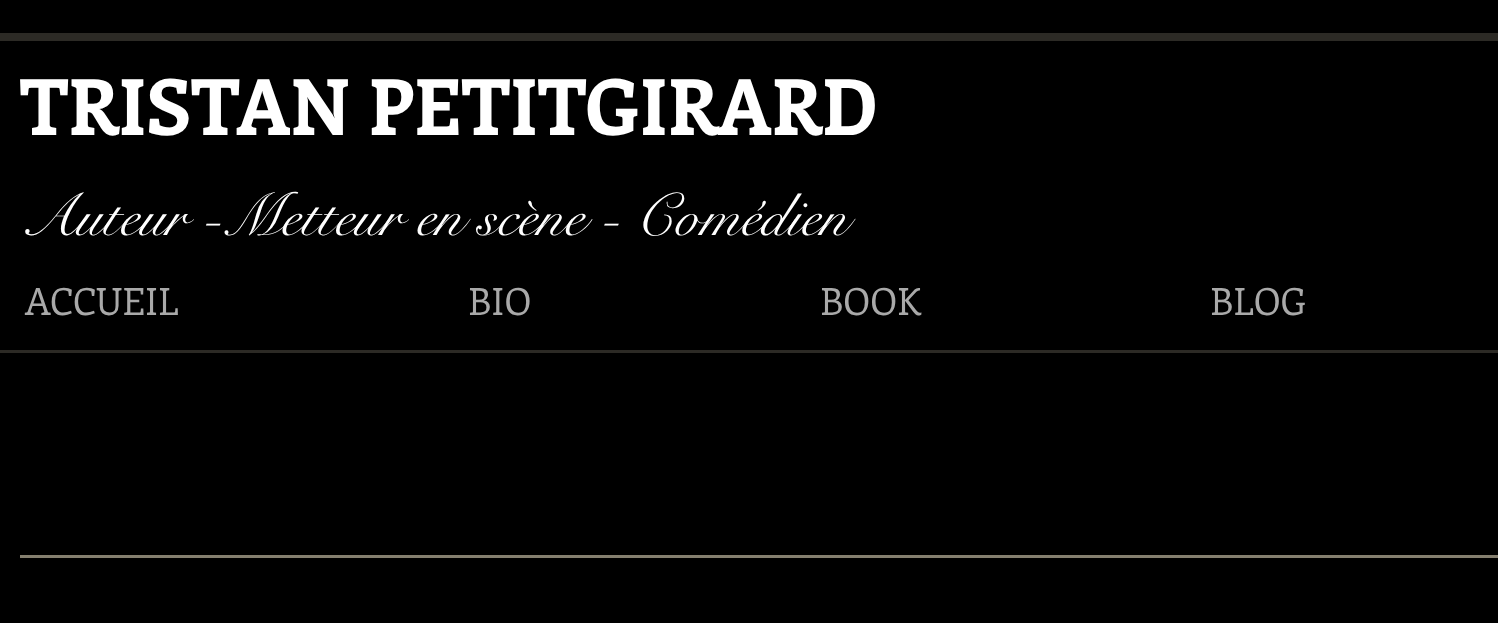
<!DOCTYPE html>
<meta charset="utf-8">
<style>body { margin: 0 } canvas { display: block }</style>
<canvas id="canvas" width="1498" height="623"></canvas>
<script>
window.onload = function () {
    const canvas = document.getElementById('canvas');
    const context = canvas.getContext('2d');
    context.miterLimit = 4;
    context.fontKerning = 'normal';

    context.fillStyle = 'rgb(0, 0, 0)';
    context.fillRect(0, 0, 1498, 623);
    context.fillStyle = 'rgb(44, 42, 37)';
    context.fillRect(0, 33, 1498, 8);
    context.fillRect(0, 350, 1498, 3);
    context.fillStyle = 'rgb(133, 127, 111)';
    context.fillRect(20, 555, 1478, 3);
    context.font = 'bold 77.5px Enriqueta';
    context.fillStyle = 'rgb(255, 255, 255)';
    context.fillText('TRISTAN PETITGIRARD', 20, 135);
    context.font = '60px "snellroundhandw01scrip"';
    context.fillText('Auteur -Metteur en scène - Comédien', 20, 235);
    context.font = '37.5px Enriqueta';
    context.fillStyle = 'rgb(169, 169, 169)';
    context.fillText('ACCUEIL', 25, 315);
    context.fillText('BIO', 468, 315);
    context.fillText('BOOK', 820, 315);
    context.fillText('BLOG', 1210, 315);
};
</script>
